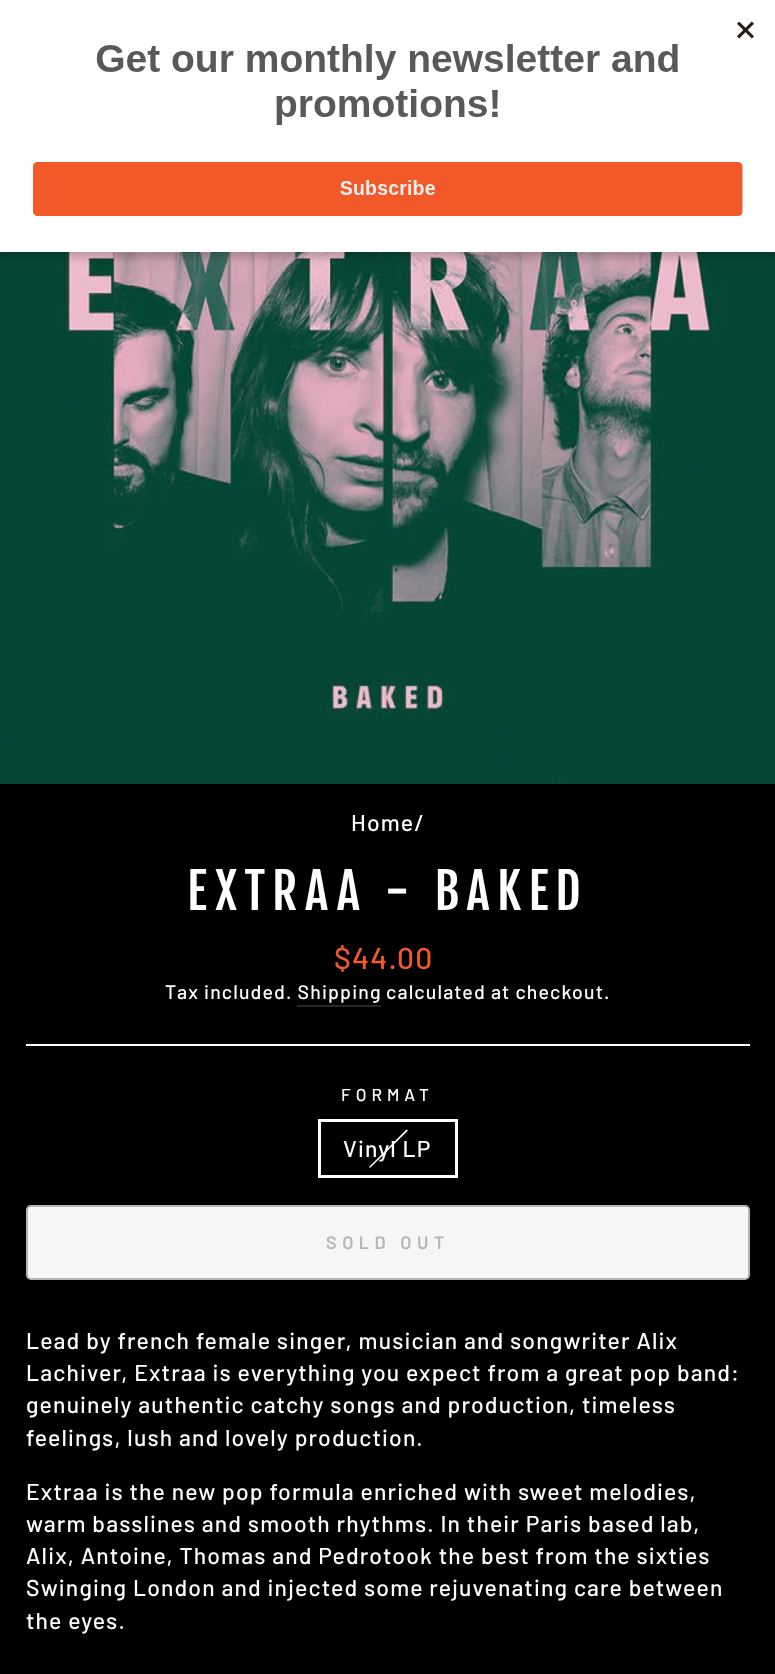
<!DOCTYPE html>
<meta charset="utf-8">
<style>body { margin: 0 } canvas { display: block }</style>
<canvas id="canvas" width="775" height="1674"></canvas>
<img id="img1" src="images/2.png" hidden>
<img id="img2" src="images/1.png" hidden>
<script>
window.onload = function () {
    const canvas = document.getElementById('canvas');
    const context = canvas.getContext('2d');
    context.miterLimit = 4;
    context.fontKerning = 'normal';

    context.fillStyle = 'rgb(0, 0, 0)';
    context.fillRect(0, 0, 775, 1674);
    context.drawImage(document.getElementById('img1'), 0, 252, 775, 532);
    context.fillStyle = 'rgba(0, 0, 0, 0.2)';
    context.filter = 'blur(4.5px)';
    context.beginPath();
    context.rect(0, 5, 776, 252);
    context.fill();
    context.filter = 'none';
    context.fillStyle = 'rgb(255, 255, 255)';
    context.fillRect(0, 0, 775, 252);
    context.drawImage(document.getElementById('img2'), 32, 21, 722, 195);
    context.fillStyle = 'rgb(38, 38, 38)';
    context.fillRect(297, 1005, 84, 2);
    context.fillStyle = 'rgb(255, 255, 255)';
    context.fillRect(26, 1044, 724, 2);
    context.strokeStyle = 'rgb(255, 255, 255)';
    context.lineWidth = 3;
    context.strokeRect(319.5, 1120.5, 137, 56);
    context.beginPath();
    context.moveTo(406.5, 1129.5);
    context.lineTo(408, 1130.5);
    context.lineTo(370, 1168);
    context.lineTo(369, 1167);
    context.closePath();
    context.fill();
    context.fillStyle = 'rgb(246, 246, 246)';
    context.beginPath();
    context.roundRect(27, 1206, 722, 73, 4);
    context.fill();
    context.strokeStyle = 'rgb(182, 182, 182)';
    context.lineWidth = 2;
    context.stroke();
    context.letterSpacing = '1.15px';
    context.font = '500 22.95px Barlow';
    context.fillStyle = 'rgb(255, 255, 255)';
    context.fillText('Home/', 351, 831);
    context.letterSpacing = '7.4px';
    context.font = '49.25px Fjalla One';
    context.fillText('EXTRAA - BAKED', 187, 910);
    context.letterSpacing = '1.15px';
    context.font = '500 30px Barlow';
    context.fillStyle = 'rgb(241, 90, 41)';
    context.fillText('$44.00', 334, 969);
    context.font = '500 19.5px Barlow';
    context.fillStyle = 'rgb(255, 255, 255)';
    context.fillText('Tax included. Shipping', 165, 999);
    context.fillText('calculated at checkout.', 386, 999);
    context.letterSpacing = '5px';
    context.font = '500 17.25px Barlow';
    context.fillText('FORMAT', 341, 1101);
    context.letterSpacing = '1.15px';
    context.font = '500 22.95px Barlow';
    context.fillText('Vinyl LP', 343, 1157);
    context.letterSpacing = '5.5px';
    context.font = '600 18px Barlow';
    context.fillStyle = 'rgb(182, 182, 182)';
    context.fillText('SOLD OUT', 326, 1249);
    context.letterSpacing = '1.15px';
    context.font = '500 22.95px Barlow';
    context.fillStyle = 'rgb(255, 255, 255)';
    context.fillText('Lead by french female singer, musician and songwriter Alix', 26, 1349);
    context.fillText('Lachiver, Extraa is everything you expect from a great pop band:', 26, 1381);
    context.fillText('genuinely authentic catchy songs and production, timeless', 26, 1413);
    context.fillText('feelings, lush and lovely production.', 26, 1446);
    context.fillText('Extraa is the new pop formula enriched with sweet melodies,', 26, 1500);
    context.fillText('warm basslines and smooth rhythms. In their Paris based lab,', 26, 1532);
    context.fillText('Alix, Antoine, Thomas and Pedrotook the best from the sixties', 26, 1564);
    context.fillText('Swinging London and injected some rejuvenating care between', 26, 1596);
    context.fillText('the eyes.', 26, 1629);
};
</script>
